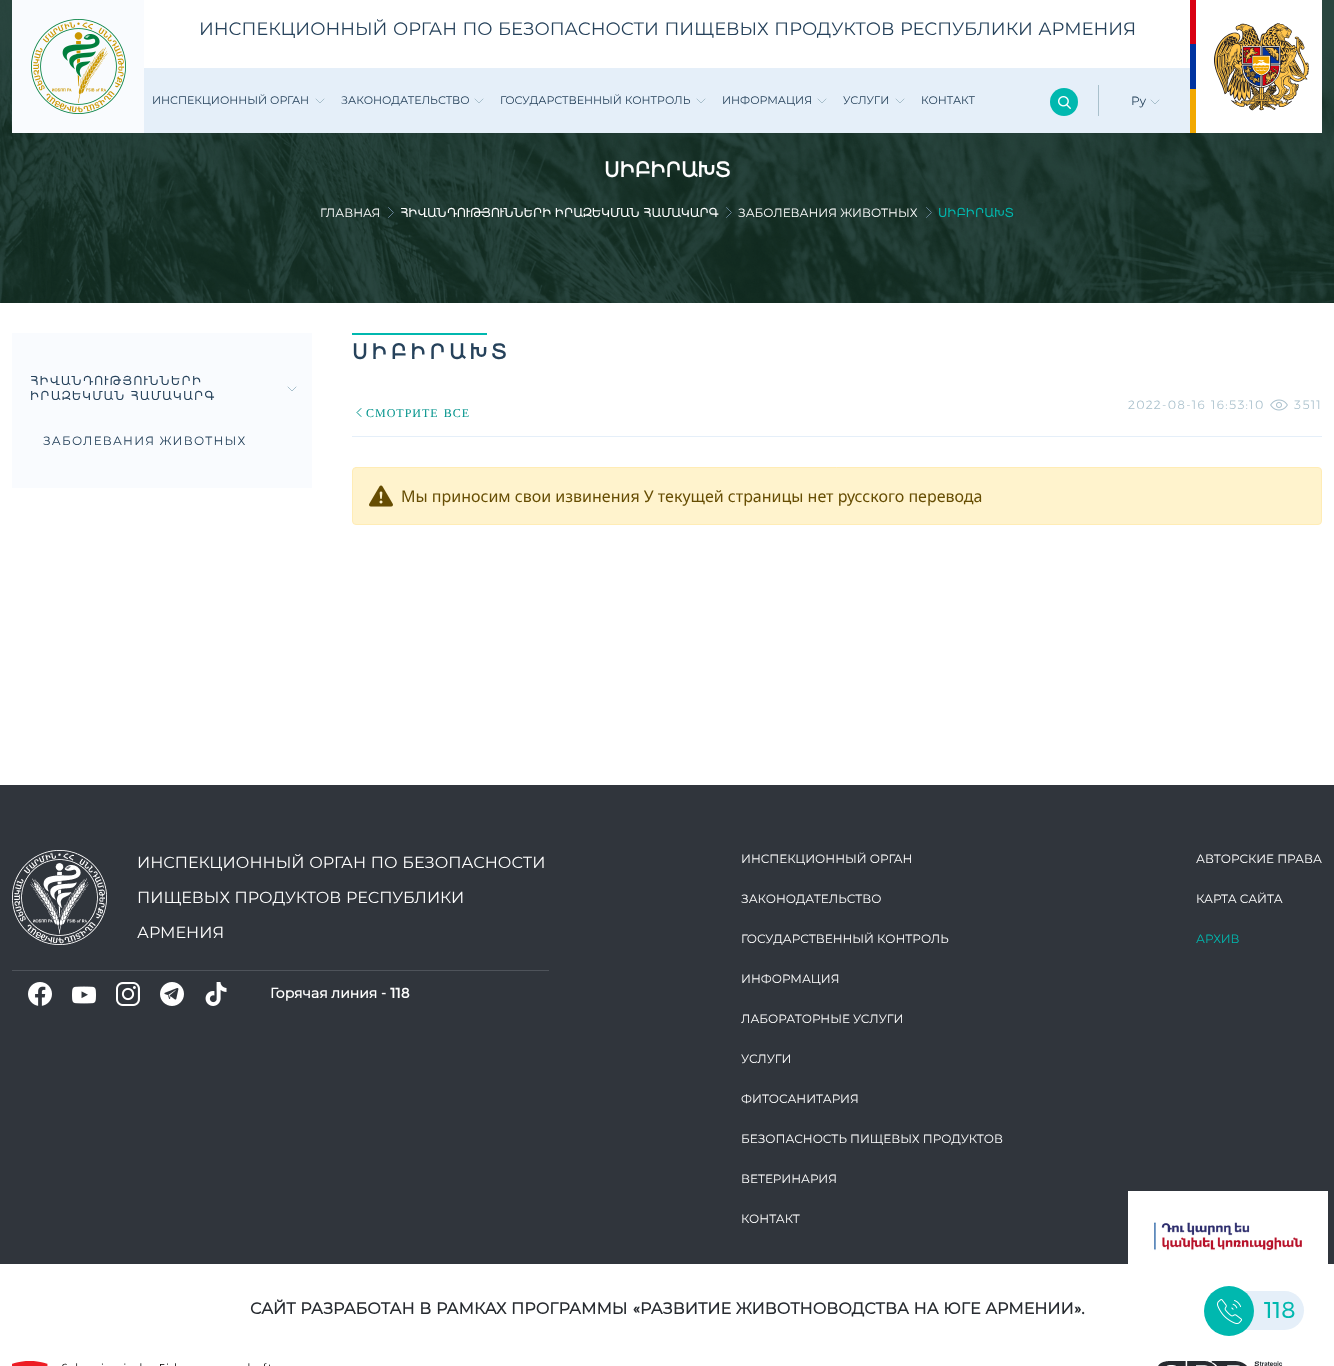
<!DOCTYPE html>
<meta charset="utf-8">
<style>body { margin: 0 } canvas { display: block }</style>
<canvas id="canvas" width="1334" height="1366"></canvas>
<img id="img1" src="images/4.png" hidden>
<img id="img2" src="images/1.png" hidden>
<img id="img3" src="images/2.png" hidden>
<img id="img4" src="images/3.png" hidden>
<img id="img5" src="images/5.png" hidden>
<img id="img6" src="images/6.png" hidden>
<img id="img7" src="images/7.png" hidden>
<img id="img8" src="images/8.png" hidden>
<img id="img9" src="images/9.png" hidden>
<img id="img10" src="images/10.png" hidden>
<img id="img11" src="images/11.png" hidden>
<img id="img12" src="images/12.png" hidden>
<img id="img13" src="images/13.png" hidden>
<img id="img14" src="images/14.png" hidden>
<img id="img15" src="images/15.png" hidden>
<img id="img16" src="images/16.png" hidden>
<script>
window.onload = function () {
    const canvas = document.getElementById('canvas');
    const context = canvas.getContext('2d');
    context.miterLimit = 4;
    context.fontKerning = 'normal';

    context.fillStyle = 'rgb(255, 255, 255)';
    context.fillRect(0, 0, 1334, 1366);
    context.drawImage(document.getElementById('img1'), 0, 0, 1334, 303);
    context.fillStyle = 'rgb(249, 251, 254)';
    context.fillRect(12, 0, 132, 133);
    context.drawImage(document.getElementById('img2'), 31, 19, 95, 95);
    context.fillStyle = 'rgb(255, 255, 255)';
    context.fillRect(144, 0, 1046, 68);
    context.fillStyle = 'rgb(229, 239, 249)';
    context.fillRect(144, 68, 1046, 65);
    context.beginPath();
    context.moveTo(316, 99);
    context.lineTo(320, 103);
    context.lineTo(324, 99);
    context.strokeStyle = 'rgb(169, 192, 204)';
    context.lineCap = 'round';
    context.stroke();
    context.beginPath();
    context.moveTo(475, 99);
    context.lineTo(479, 103);
    context.lineTo(483, 99);
    context.stroke();
    context.beginPath();
    context.moveTo(697, 99);
    context.lineTo(701, 103);
    context.lineTo(705, 99);
    context.stroke();
    context.beginPath();
    context.moveTo(818, 99);
    context.lineTo(822, 103);
    context.lineTo(826, 99);
    context.stroke();
    context.beginPath();
    context.moveTo(896, 99);
    context.lineTo(900, 103);
    context.lineTo(904, 99);
    context.stroke();
    context.fillStyle = 'rgb(169, 192, 204)';
    context.fillRect(1098, 85, 1, 31);
    context.fillStyle = 'rgb(0, 184, 175)';
    context.beginPath();
    context.arc(1064, 102, 14, 0, 2 * Math.PI);
    context.fill();
    context.drawImage(document.getElementById('img3'), 1058, 96, 13, 13);
    context.beginPath();
    context.moveTo(1151, 100);
    context.lineTo(1155, 104);
    context.lineTo(1159, 100);
    context.stroke();
    context.fillStyle = 'rgb(255, 255, 255)';
    context.fillRect(1196, 0, 126, 133);
    context.fillStyle = 'rgb(242, 168, 0)';
    context.fillRect(1190, 89, 6, 44);
    context.fillStyle = 'rgb(0, 51, 160)';
    context.fillRect(1190, 44, 6, 45);
    context.fillStyle = 'rgb(217, 0, 18)';
    context.fillRect(1190, 0, 6, 44);
    context.drawImage(document.getElementById('img4'), 1214, 23, 95, 88);
    context.beginPath();
    context.moveTo(388.5, 217.5);
    context.lineTo(393.5, 212.5);
    context.lineTo(388.5, 207.5);
    context.strokeStyle = 'rgb(101, 129, 148)';
    context.stroke();
    context.beginPath();
    context.moveTo(726.5, 217.5);
    context.lineTo(731.5, 212.5);
    context.lineTo(726.5, 207.5);
    context.stroke();
    context.beginPath();
    context.moveTo(926.5, 217.5);
    context.lineTo(931.5, 212.5);
    context.lineTo(926.5, 207.5);
    context.stroke();
    context.fillStyle = 'rgb(249, 251, 254)';
    context.fillRect(12, 333, 300, 155);
    context.beginPath();
    context.moveTo(288, 387);
    context.lineTo(292, 391);
    context.lineTo(296, 387);
    context.strokeStyle = 'rgb(169, 192, 204)';
    context.stroke();
    context.fillStyle = 'rgb(0, 184, 175)';
    context.fillRect(352, 333, 135, 2);
    context.fillStyle = 'rgb(229, 239, 249)';
    context.fillRect(352, 436, 970, 1);
    context.drawImage(document.getElementById('img5'), 1270, 399, 18, 12);
    context.beginPath();
    context.moveTo(361, 416.5);
    context.lineTo(357, 412.5);
    context.lineTo(361, 408.5);
    context.strokeStyle = 'rgb(0, 147, 139)';
    context.stroke();
    context.fillStyle = 'rgb(255, 243, 205)';
    context.beginPath();
    context.roundRect(352.5, 467.5, 969, 57, 3.5);
    context.fill();
    context.strokeStyle = 'rgb(255, 236, 181)';
    context.stroke();
    context.drawImage(document.getElementById('img6'), 369, 485, 24, 22);
    context.fillStyle = 'rgb(48, 53, 60)';
    context.fillRect(0, 785, 1334, 479);
    context.drawImage(document.getElementById('img7'), 12, 850, 95, 95);
    context.fillStyle = 'rgb(78, 83, 90)';
    context.fillRect(12, 970, 537, 1);
    context.drawImage(document.getElementById('img8'), 28, 982, 24, 24);
    context.drawImage(document.getElementById('img9'), 72, 986, 24, 18);
    context.drawImage(document.getElementById('img10'), 116, 982, 24, 24);
    context.drawImage(document.getElementById('img11'), 160, 982, 24, 24);
    context.drawImage(document.getElementById('img12'), 205, 982, 22, 24);
    context.drawImage(document.getElementById('img13'), 1128, 1191, 200, 73);
    context.drawImage(document.getElementById('img14'), 12, 1361, 258, 5);
    context.drawImage(document.getElementById('img15'), 1158, 1361, 125, 5);
    context.fillStyle = 'rgb(229, 239, 249)';
    context.beginPath();
    context.roundRect(1244, 1291, 60, 39, [0, 19.5, 19.5, 0]);
    context.fill();
    context.fillStyle = 'rgb(0, 184, 175)';
    context.beginPath();
    context.arc(1229, 1311, 25, 0, 2 * Math.PI);
    context.fill();
    context.drawImage(document.getElementById('img16'), 1217, 1299, 25, 25);
    context.wordSpacing = '0.75px';
    context.font = '18px Montserrat';
    context.fillStyle = 'rgb(38, 66, 91)';
    context.fillText('ИНСПЕКЦИОННЫЙ ОРГАН ПО БЕЗОПАСНОСТИ ПИЩЕВЫХ ПРОДУКТОВ РЕСПУБЛИКИ АРМЕНИЯ', 199, 35);
    context.wordSpacing = '0px';
    context.font = '11px Montserrat';
    context.fillText('ИНСПЕКЦИОННЫЙ ОРГАН', 152, 104);
    context.fillText('ЗАКОНОДАТЕЛЬСТВО', 341, 104);
    context.fillText('ГОСУДАРСТВЕННЫЙ КОНТРОЛЬ', 500, 104);
    context.fillText('ИНФОРМАЦИЯ', 722, 104);
    context.fillText('УСЛУГИ', 843, 104);
    context.fillText('КОНТАКТ', 921, 104);
    context.font = '12px Montserrat';
    context.fillText('Ру', 1131, 105);
    context.font = 'bold 20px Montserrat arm';
    context.fillStyle = 'rgb(255, 255, 255)';
    context.fillText('ՍԻԲԻՐԱԽՏ', 604, 177);
    context.font = '12px Montserrat';
    context.fillText('ГЛАВНАЯ', 320, 217);
    context.font = '12px Montserrat arm';
    context.fillText('ՀԻՎԱՆԴՈՒԹՅՈՒՆՆԵՐԻ ԻՐԱԶԵԿՄԱՆ ՀԱՄԱԿԱՐԳ', 400, 217);
    context.font = '12px Montserrat';
    context.fillText('ЗАБОЛЕВАНИЯ ЖИВОТНЫХ', 738, 217);
    context.font = '12px Montserrat arm';
    context.fillStyle = 'rgb(0, 184, 175)';
    context.fillText('ՍԻԲԻՐԱԽՏ', 938, 217);
    context.letterSpacing = '1.2px';
    context.fillStyle = 'rgb(38, 66, 91)';
    context.fillText('ՀԻՎԱՆԴՈՒԹՅՈՒՆՆԵՐԻ', 30, 385);
    context.fillText('ԻՐԱԶԵԿՄԱՆ ՀԱՄԱԿԱՐԳ', 30, 400);
    context.font = '12px Montserrat';
    context.fillText('ЗАБОЛЕВАНИЯ ЖИВОТНЫХ', 43, 445);
    context.letterSpacing = '4px';
    context.font = 'bold 20px Montserrat arm';
    context.fillText('ՍԻԲԻՐԱԽՏ', 352, 359);
    context.letterSpacing = '1.2px';
    context.font = '300 12px Montserrat arm';
    context.fillStyle = 'rgb(169, 192, 204)';
    context.fillText('2022-08-16 16:53:10', 1128, 409);
    context.fillText('3511', 1294, 409);
    context.letterSpacing = '1px';
    context.wordSpacing = '1px';
    context.font = '12px Liberation Serif';
    context.fillStyle = 'rgb(0, 147, 139)';
    context.fillText('СМОТРИТЕ ВСЕ', 366, 417);
    context.letterSpacing = '0px';
    context.wordSpacing = '0px';
    context.font = '16px Noto Sans';
    context.fillStyle = 'rgb(102, 77, 3)';
    context.fillText('Мы приносим свои извинения У текущей страницы нет русского перевода', 401, 502);
    context.wordSpacing = '0.5px';
    context.font = '16px Montserrat';
    context.fillStyle = 'rgb(255, 255, 255)';
    context.fillText('ИНСПЕКЦИОННЫЙ ОРГАН ПО БЕЗОПАСНОСТИ', 137, 868);
    context.fillText('ПИЩЕВЫХ ПРОДУКТОВ РЕСПУБЛИКИ', 137, 903);
    context.wordSpacing = '0px';
    context.fillText('АРМЕНИЯ', 137, 938);
    context.font = 'bold 14px Montserrat';
    context.fillText('Горячая линия', 270, 998);
    context.font = 'bold 14px Montserrat arm';
    context.fillText('- 118', 381, 998);
    context.font = '12px Montserrat';
    context.fillText('ИНСПЕКЦИОННЫЙ ОРГАН', 741, 863);
    context.fillText('ЗАКОНОДАТЕЛЬСТВО', 741, 903);
    context.fillText('ГОСУДАРСТВЕННЫЙ КОНТРОЛЬ', 741, 943);
    context.fillText('ИНФОРМАЦИЯ', 741, 983);
    context.fillText('ЛАБОРАТОРНЫЕ УСЛУГИ', 741, 1023);
    context.fillText('УСЛУГИ', 741, 1063);
    context.fillText('ФИТОСАНИТАРИЯ', 741, 1103);
    context.fillText('БЕЗОПАСНОСТЬ ПИЩЕВЫХ ПРОДУКТОВ', 741, 1143);
    context.fillText('ВЕТЕРИНАРИЯ', 741, 1183);
    context.fillText('КОНТАКТ', 741, 1223);
    context.fillText('АВТОРСКИЕ ПРАВА', 1196, 863);
    context.fillText('КАРТА САЙТА', 1196, 903);
    context.fillStyle = 'rgb(0, 184, 175)';
    context.fillText('АРХИВ', 1196, 943);
    context.wordSpacing = '0.5px';
    context.font = 'bold 16px Montserrat';
    context.fillStyle = 'rgb(39, 43, 48)';
    context.fillText('САЙТ РАЗРАБОТАН В РАМКАХ ПРОГРАММЫ', 250, 1314);
    context.wordSpacing = '0px';
    context.font = 'bold 16px Montserrat arm';
    context.fillText('«', 633, 1314);
    context.wordSpacing = '0.5px';
    context.font = 'bold 16px Montserrat';
    context.fillText('РАЗВИТИЕ ЖИВОТНОВОДСТВА НА ЮГЕ АРМЕНИИ', 640, 1314);
    context.wordSpacing = '0px';
    context.font = 'bold 16px Montserrat arm';
    context.fillText('».', 1074, 1314);
    context.font = '23px Montserrat arm';
    context.fillStyle = 'rgb(0, 184, 175)';
    context.fillText('118', 1264, 1318);
};
</script>
